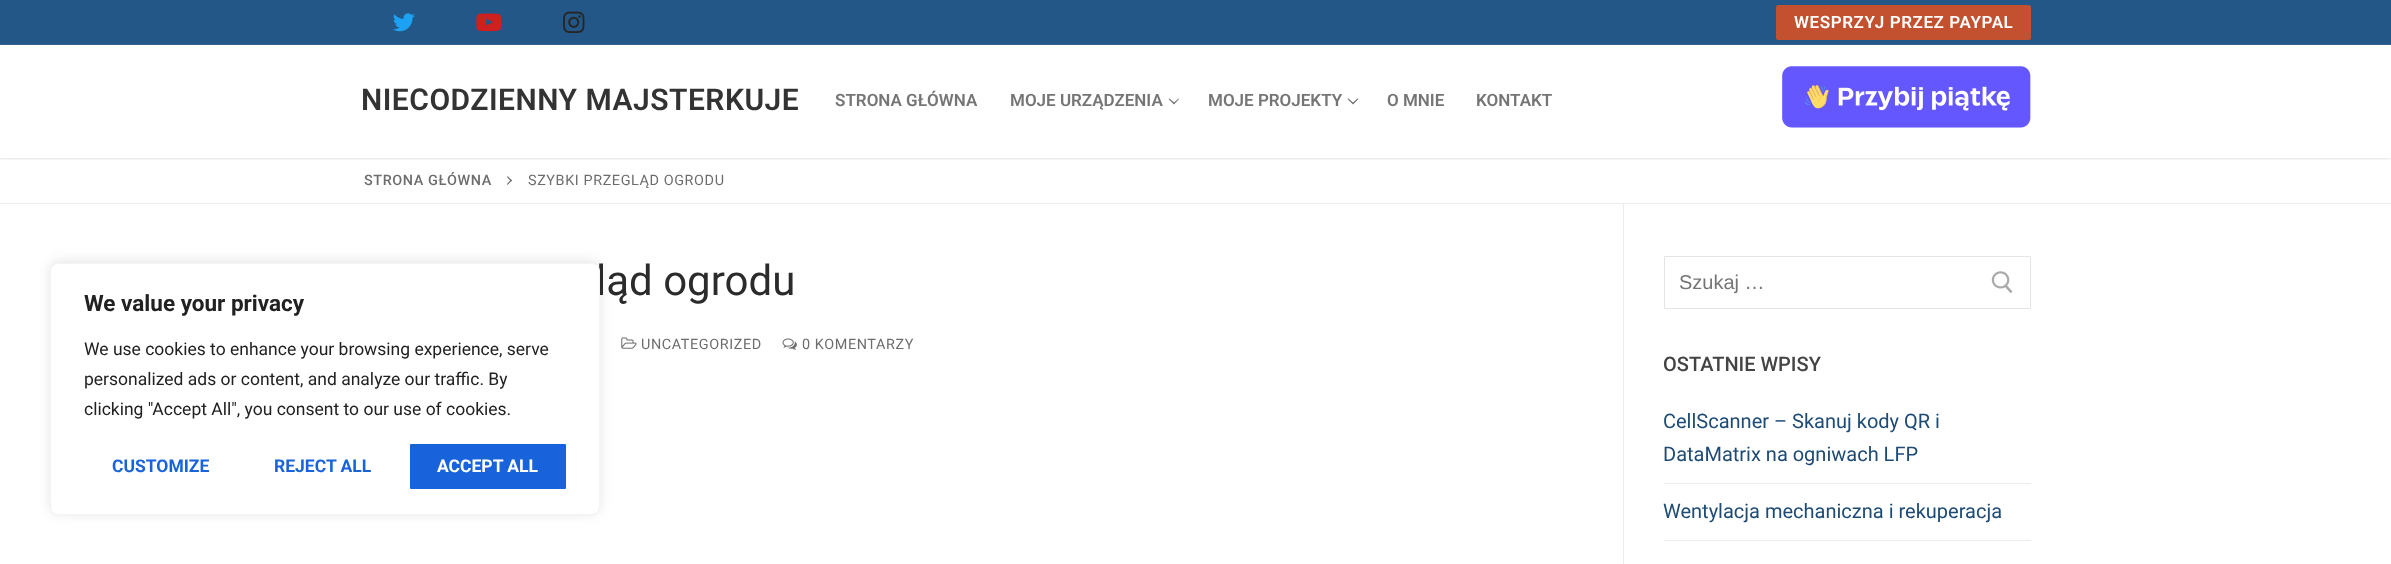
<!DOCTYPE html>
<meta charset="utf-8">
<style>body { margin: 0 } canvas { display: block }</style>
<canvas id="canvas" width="2391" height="564"></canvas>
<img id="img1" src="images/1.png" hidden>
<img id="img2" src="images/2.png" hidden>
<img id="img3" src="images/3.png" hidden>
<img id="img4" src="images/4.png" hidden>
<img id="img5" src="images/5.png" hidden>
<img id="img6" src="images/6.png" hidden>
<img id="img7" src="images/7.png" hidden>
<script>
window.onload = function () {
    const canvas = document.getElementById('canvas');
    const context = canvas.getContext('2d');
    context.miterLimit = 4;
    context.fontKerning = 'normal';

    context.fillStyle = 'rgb(255, 255, 255)';
    context.fillRect(0, 0, 2391, 564);
    context.fillStyle = 'rgba(172, 171, 171, 0.3)';
    context.filter = 'blur(6px)';
    context.beginPath();
    context.roundRect(50, 261, 550, 253, 8);
    context.fill();
    context.filter = 'none';
    context.fillStyle = 'rgb(35, 87, 135)';
    context.fillRect(0, 0, 2391, 45);
    context.drawImage(document.getElementById('img1'), 393, 13, 22, 19);
    context.drawImage(document.getElementById('img2'), 476, 13, 26, 19);
    context.drawImage(document.getElementById('img3'), 563, 11, 22, 22);
    context.fillStyle = 'rgb(195, 81, 47)';
    context.beginPath();
    context.roundRect(1776, 5, 255, 35, 2.5);
    context.fill();
    context.fillStyle = 'rgb(225, 229, 234)';
    context.filter = 'blur(1px)';
    context.beginPath();
    context.rect(0, 46, 2391, 113);
    context.fill();
    context.filter = 'none';
    context.fillStyle = 'rgb(255, 255, 255)';
    context.fillRect(0, 45, 2391, 113);
    context.fillStyle = 'rgb(115, 115, 115)';
    context.beginPath();
    context.moveTo(1174, 104.5);
    context.lineTo(1168.5, 99);
    context.lineTo(1169.5, 98.5);
    context.lineTo(1174, 102.5);
    context.closePath();
    context.moveTo(1179, 99);
    context.lineTo(1174, 104.5);
    context.lineTo(1174, 102.5);
    context.lineTo(1178.5, 98.5);
    context.closePath();
    context.fill();
    context.beginPath();
    context.moveTo(1353, 104.5);
    context.lineTo(1347.5, 99);
    context.lineTo(1348.5, 98.5);
    context.lineTo(1353, 102.5);
    context.closePath();
    context.moveTo(1358.5, 99);
    context.lineTo(1353, 104.5);
    context.lineTo(1353, 102.5);
    context.lineTo(1357.5, 98.5);
    context.closePath();
    context.fill();
    context.drawImage(document.getElementById('img4'), 1782, 66, 249, 62);
    context.fillStyle = 'rgb(234, 236, 238)';
    context.fillRect(0, 203, 2391, 1);
    context.fillStyle = 'rgb(109, 109, 109)';
    context.beginPath();
    context.moveTo(512, 180.5);
    context.lineTo(507.5, 185);
    context.lineTo(507, 184);
    context.lineTo(511, 179.5);
    context.closePath();
    context.fill();
    context.beginPath();
    context.moveTo(512, 180.5);
    context.lineTo(511, 181.5);
    context.lineTo(507, 177);
    context.lineTo(507.5, 176);
    context.closePath();
    context.fill();
    context.fillStyle = 'rgb(234, 236, 238)';
    context.fillRect(1623, 204, 1, 360);
    context.drawImage(document.getElementById('img5'), 621, 337, 16, 12);
    context.drawImage(document.getElementById('img6'), 782, 338, 15, 12);
    context.beginPath();
    context.roundRect(1664.5, 256.5, 366, 52, 0.5);
    context.strokeStyle = 'rgb(229, 229, 229)';
    context.stroke();
    context.drawImage(document.getElementById('img7'), 1991, 271, 22, 23);
    context.fillRect(1664, 483, 367, 1);
    context.fillRect(1664, 540, 367, 1);
    context.letterSpacing = '0.6px';
    context.font = '600 17px Roboto';
    context.fillStyle = 'rgb(255, 255, 255)';
    context.fillText('WESPRZYJ PRZEZ PAYPAL', 1794, 28);
    context.letterSpacing = '0.5px';
    context.font = '600 30px Roboto';
    context.fillStyle = 'rgb(51, 51, 51)';
    context.fillText('NIECODZIENNY MAJSTERKUJE', 361, 110);
    context.letterSpacing = '0px';
    context.font = '600 17px Roboto';
    context.fillStyle = 'rgb(117, 117, 117)';
    context.fillText('STRONA GŁÓWNA', 835, 106);
    context.fillText('MOJE URZĄDZENIA', 1010, 106);
    context.fillText('MOJE PROJEKTY', 1208, 106);
    context.fillText('O MNIE', 1387, 106);
    context.fillText('KONTAKT', 1476, 106);
    context.letterSpacing = '0.6px';
    context.font = '500 14.4px Roboto';
    context.fillStyle = 'rgb(109, 109, 109)';
    context.fillText('STRONA GŁÓWNA', 364, 185);
    context.font = '14.4px Roboto';
    context.fillText('SZYBKI PRZEGLĄD OGRODU', 528, 185);
    context.letterSpacing = '0px';
    context.font = '42px Roboto';
    context.fillStyle = 'rgb(43, 43, 43)';
    context.fillText('ląd ogrodu', 596, 295);
    context.fillStyle = 'rgb(255, 255, 255)';
    context.beginPath();
    context.roundRect(50.5, 263.5, 549, 251, 7.5);
    context.fill();
    context.strokeStyle = 'rgb(244, 244, 244)';
    context.stroke();
    context.fillStyle = 'rgb(24, 99, 220)';
    context.beginPath();
    context.roundRect(410, 444, 156, 45, 1);
    context.fill();
    context.font = 'bold 17.5px Roboto';
    context.fillStyle = 'rgb(255, 255, 255)';
    context.fillText('ACCEPT ALL', 437, 472);
    context.fillStyle = 'rgb(24, 99, 220)';
    context.fillText('REJECT ALL', 274, 472);
    context.fillText('CUSTOMIZE', 112, 472);
    context.font = '17.5px Roboto';
    context.fillStyle = 'rgb(33, 33, 33)';
    context.fillText('clicking "Accept All", you consent to our use of cookies.', 84, 415);
    context.fillText('personalized ads or content, and analyze our traffic. By', 84, 385);
    context.fillText('We use cookies to enhance your browsing experience, serve', 84, 355);
    context.font = 'bold 22.5px Roboto';
    context.fillText('We value your privacy', 84, 311);
    context.letterSpacing = '0.6px';
    context.font = '14.4px Roboto';
    context.fillStyle = 'rgb(109, 109, 109)';
    context.fillText('UNCATEGORIZED', 641, 349);
    context.fillText('0 KOMENTARZY', 802, 349);
    context.letterSpacing = '0px';
    context.font = '20px Liberation Sans';
    context.fillStyle = 'rgb(117, 117, 117)';
    context.fillText('Szukaj …', 1679, 289);
    context.font = '500 20px Roboto';
    context.fillStyle = 'rgb(68, 68, 68)';
    context.fillText('OSTATNIE WPISY', 1663, 371);
    context.font = '20px Roboto';
    context.fillStyle = 'rgb(30, 75, 117)';
    context.fillText('CellScanner – Skanuj kody QR i', 1663, 428);
    context.fillText('DataMatrix na ogniwach LFP', 1663, 461);
    context.fillText('Wentylacja mechaniczna i rekuperacja', 1663, 518);
};
</script>
